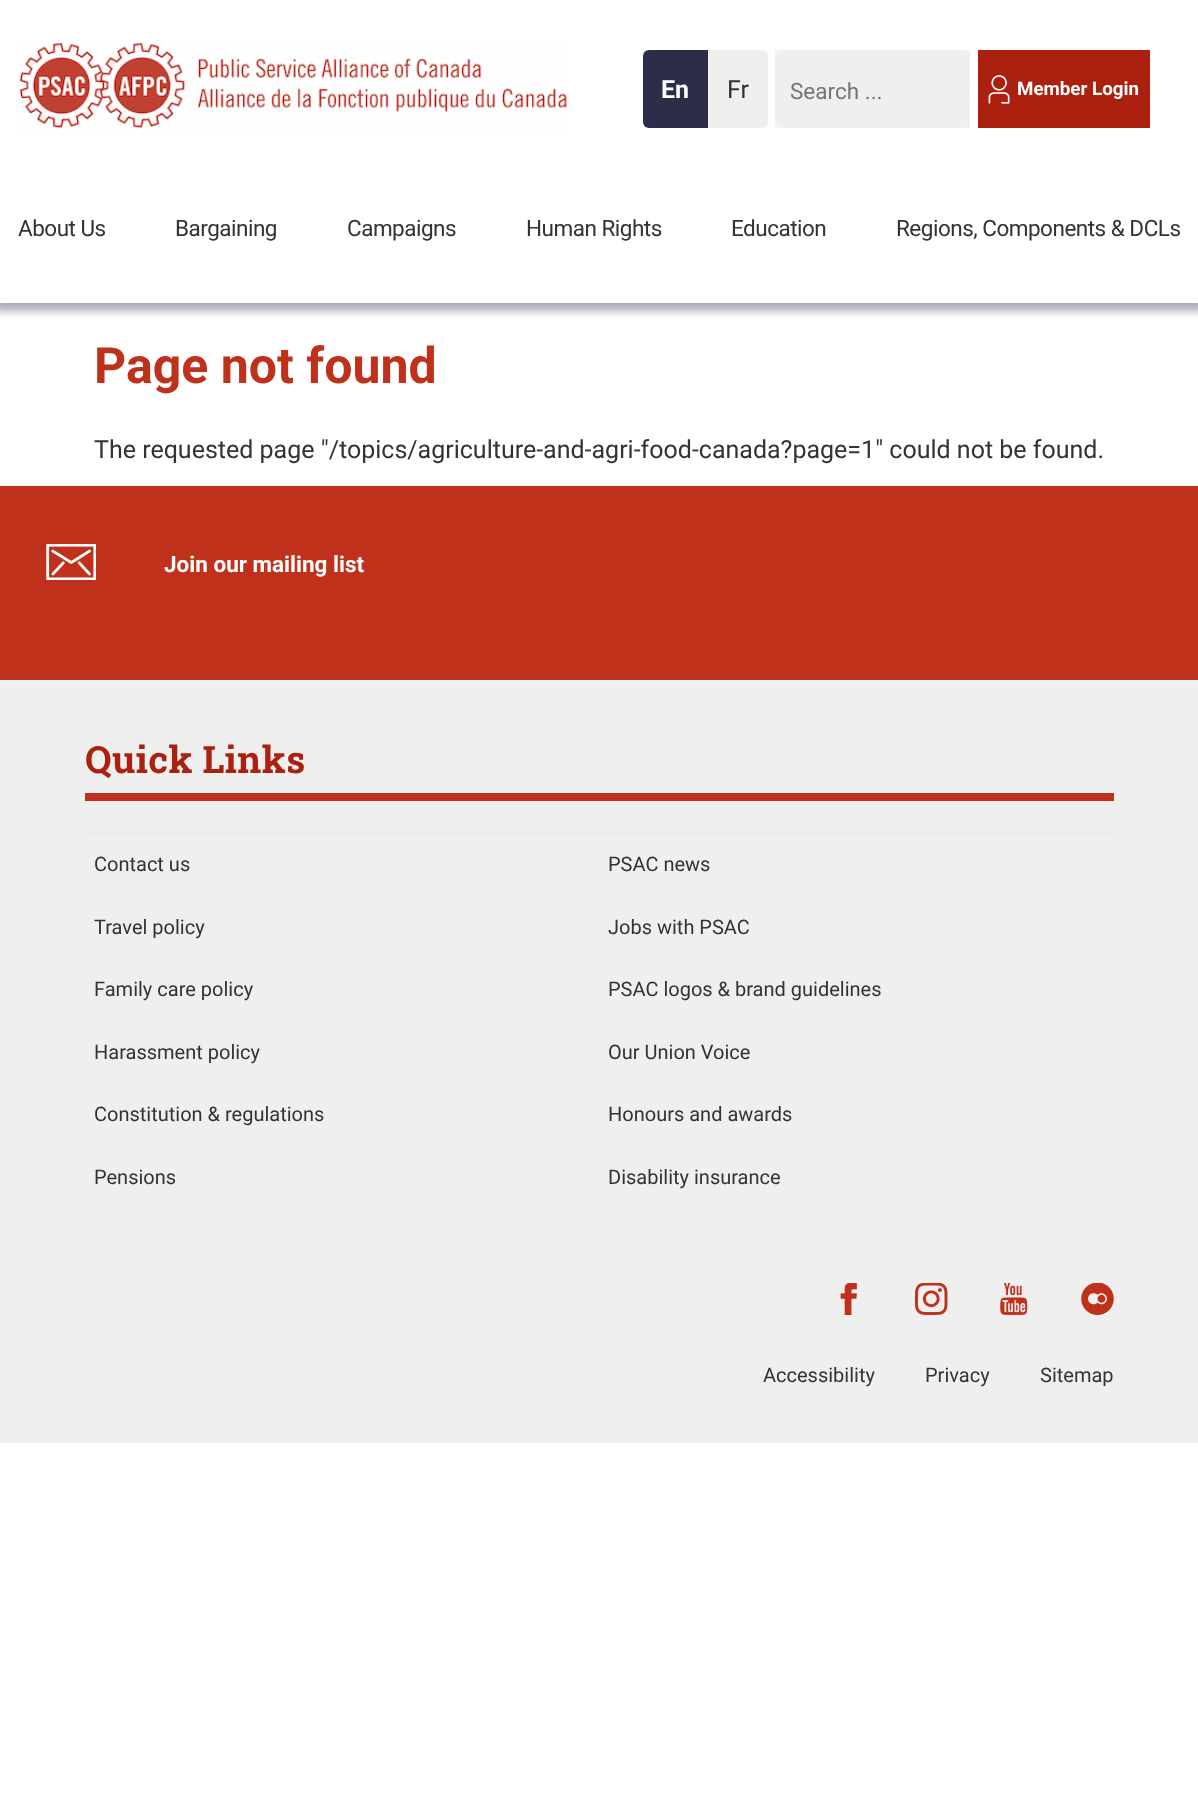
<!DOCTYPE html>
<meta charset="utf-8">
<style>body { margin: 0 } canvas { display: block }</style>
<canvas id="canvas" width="1198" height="1797"></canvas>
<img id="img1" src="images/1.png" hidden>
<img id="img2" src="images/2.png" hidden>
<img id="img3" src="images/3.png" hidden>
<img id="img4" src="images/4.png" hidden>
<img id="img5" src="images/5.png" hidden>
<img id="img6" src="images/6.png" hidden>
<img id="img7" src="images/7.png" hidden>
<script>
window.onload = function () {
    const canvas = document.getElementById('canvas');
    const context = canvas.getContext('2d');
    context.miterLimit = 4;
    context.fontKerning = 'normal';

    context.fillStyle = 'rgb(255, 255, 255)';
    context.fillRect(0, 0, 1198, 1797);
    context.fillStyle = 'rgba(44, 45, 73, 0.4)';
    context.filter = 'blur(4px)';
    context.beginPath();
    context.rect(-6, -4, 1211, 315);
    context.fill();
    context.filter = 'none';
    context.fillStyle = 'rgb(255, 255, 255)';
    context.fillRect(0, 0, 1198, 303);
    context.drawImage(document.getElementById('img1'), 19, 40, 550, 90);
    context.fillStyle = 'rgb(44, 45, 73)';
    context.beginPath();
    context.roundRect(643, 50, 65, 78, [6, 0, 0, 6]);
    context.fill();
    context.fillStyle = 'rgb(239, 239, 239)';
    context.beginPath();
    context.roundRect(708, 50, 60, 78, [0, 6, 6, 0]);
    context.fill();
    context.fillStyle = 'rgb(243, 243, 243)';
    context.fillRect(775, 50, 195, 78);
    context.fillStyle = 'rgb(239, 239, 239)';
    context.beginPath();
    context.roundRect(775, 50, 195, 78, 11);
    context.fill();
    context.fillRect(966, 55, 4, 71);
    context.fillStyle = 'rgb(172, 32, 15)';
    context.fillRect(978, 50, 172, 78);
    context.drawImage(document.getElementById('img2'), 988, 75, 22, 29);
    context.fillStyle = 'rgb(243, 243, 243)';
    context.fillRect(0, 680, 1198, 1);
    context.fillStyle = 'rgb(191, 49, 26)';
    context.fillRect(0, 486, 1198, 194);
    context.drawImage(document.getElementById('img3'), 46, 544, 50, 36);
    context.fillStyle = 'rgb(239, 239, 239)';
    context.fillRect(0, 681, 1198, 762);
    context.fillStyle = 'rgb(191, 49, 26)';
    context.fillRect(85, 793, 1029, 8);
    context.fillStyle = 'rgb(231, 231, 231)';
    context.fillRect(85, 833, 1029, 1);
    context.drawImage(document.getElementById('img4'), 840, 1283, 17, 32);
    context.drawImage(document.getElementById('img5'), 915, 1283, 33, 32);
    context.drawImage(document.getElementById('img6'), 1000, 1283, 28, 32);
    context.drawImage(document.getElementById('img7'), 1081, 1283, 33, 32);
    context.font = 'bold 25px Roboto';
    context.fillStyle = 'rgb(255, 255, 255)';
    context.fillText('En', 661, 98);
    context.font = '25px Roboto';
    context.fillStyle = 'rgb(51, 51, 51)';
    context.fillText('Fr', 727, 98);
    context.font = '22.5px Roboto';
    context.fillStyle = 'rgb(117, 117, 117)';
    context.fillText('Search ...', 790, 99);
    context.font = 'bold 18.75px Roboto';
    context.fillStyle = 'rgb(255, 255, 255)';
    context.fillText('Member Login', 1017, 95);
    context.letterSpacing = '-0.5px';
    context.font = '22.5px Roboto';
    context.fillStyle = 'rgb(51, 51, 51)';
    context.fillText('About Us', 18, 236);
    context.fillText('Bargaining', 175, 236);
    context.fillText('Campaigns', 347, 236);
    context.fillText('Human Rights', 526, 236);
    context.fillText('Education', 731, 236);
    context.fillText('Regions, Components & DCLs', 896, 236);
    context.letterSpacing = '0px';
    context.font = 'bold 50px Roboto';
    context.fillStyle = 'rgb(191, 49, 26)';
    context.fillText('Page not found', 94, 383);
    context.font = '25px Roboto';
    context.fillStyle = 'rgb(51, 51, 51)';
    context.fillText('The requested page "/topics/agriculture-and-agri-food-canada?page=1" could not be found.', 94, 458);
    context.font = 'bold 22.5px Roboto';
    context.fillStyle = 'rgb(255, 255, 255)';
    context.fillText('Join our mailing list', 164, 572);
    context.letterSpacing = '0.4px';
    context.font = 'bold 37.5px Roboto Slab';
    context.fillStyle = 'rgb(172, 32, 15)';
    context.fillText('Quick Links', 85, 773);
    context.letterSpacing = '0px';
    context.font = '20px Roboto';
    context.fillStyle = 'rgb(51, 51, 51)';
    context.fillText('Contact us', 94, 871);
    context.fillText('PSAC news', 608, 871);
    context.fillText('Travel policy', 94, 934);
    context.fillText('Jobs with PSAC', 608, 934);
    context.fillText('Family care policy', 94, 996);
    context.fillText('PSAC logos & brand guidelines', 608, 996);
    context.fillText('Harassment policy', 94, 1059);
    context.fillText('Our Union Voice', 608, 1059);
    context.fillText('Constitution & regulations', 94, 1121);
    context.fillText('Honours and awards', 608, 1121);
    context.fillText('Pensions', 94, 1184);
    context.fillText('Disability insurance', 608, 1184);
    context.fillText('Accessibility', 763, 1382);
    context.fillText('Privacy', 925, 1382);
    context.fillText('Sitemap', 1040, 1382);
};
</script>
